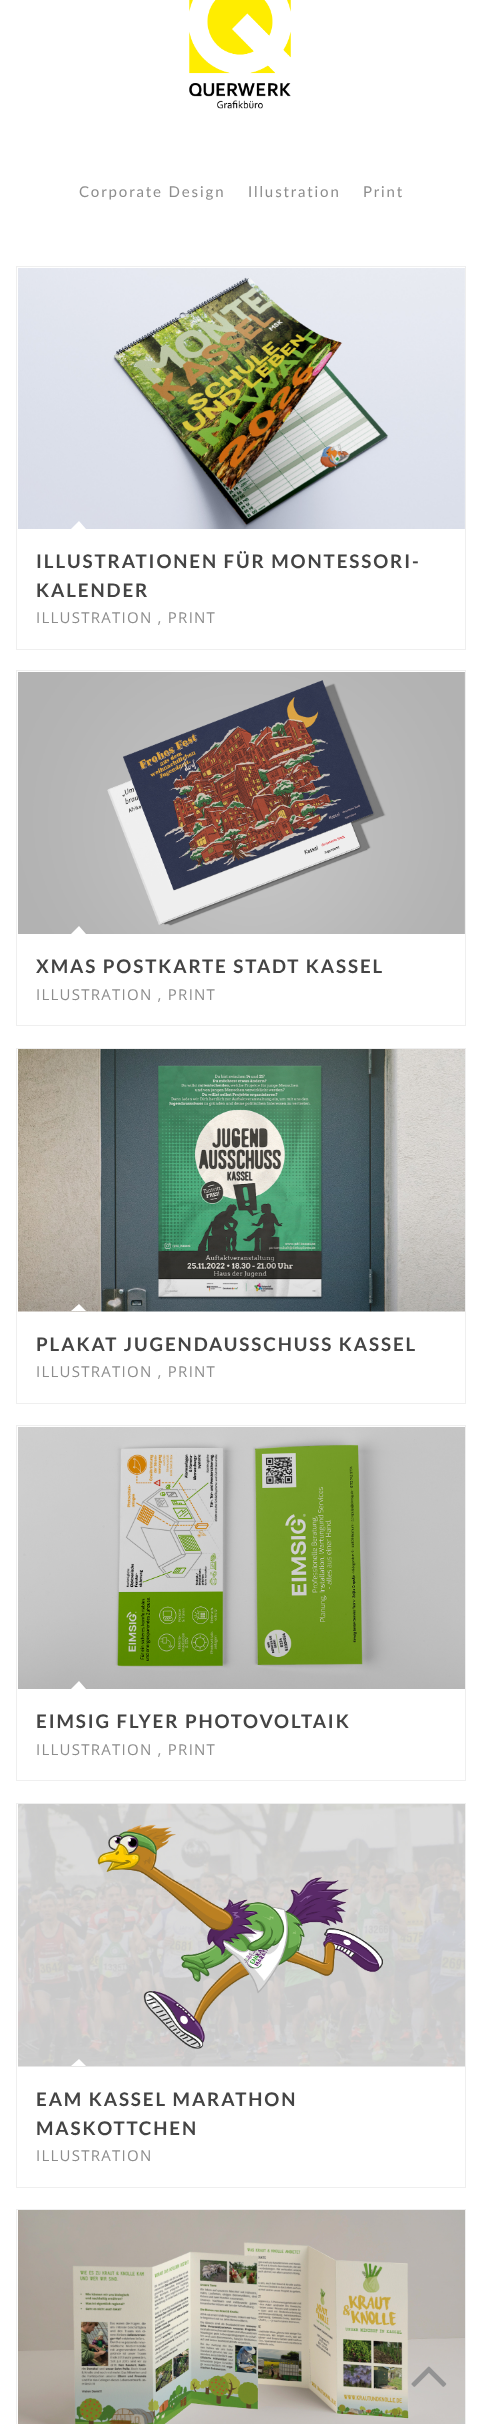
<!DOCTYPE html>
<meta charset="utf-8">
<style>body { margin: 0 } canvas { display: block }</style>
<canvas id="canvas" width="482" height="2424"></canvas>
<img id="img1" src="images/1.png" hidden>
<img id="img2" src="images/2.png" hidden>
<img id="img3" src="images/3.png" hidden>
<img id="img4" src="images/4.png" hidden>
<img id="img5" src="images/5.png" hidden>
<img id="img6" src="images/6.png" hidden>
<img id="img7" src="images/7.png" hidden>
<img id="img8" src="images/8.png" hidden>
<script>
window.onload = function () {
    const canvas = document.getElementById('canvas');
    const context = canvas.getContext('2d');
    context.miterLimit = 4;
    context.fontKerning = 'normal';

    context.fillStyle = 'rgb(255, 255, 255)';
    context.fillRect(0, 0, 482, 2424);
    context.drawImage(document.getElementById('img1'), 189, 0, 102, 109);
    context.strokeStyle = 'rgb(239, 239, 239)';
    context.strokeRect(16.5, 266.5, 449, 383);
    context.drawImage(document.getElementById('img2'), 18, 268, 447, 261);
    context.beginPath();
    context.moveTo(86, 529);
    context.lineTo(71, 529);
    context.lineTo(79, 521);
    context.closePath();
    context.fill();
    context.strokeRect(16.5, 670.5, 449, 355);
    context.drawImage(document.getElementById('img3'), 18, 672, 447, 262);
    context.beginPath();
    context.moveTo(86, 934);
    context.lineTo(71, 934);
    context.lineTo(79, 926);
    context.closePath();
    context.fill();
    context.strokeRect(16.5, 1048.5, 449, 355);
    context.drawImage(document.getElementById('img4'), 18, 1049, 447, 263);
    context.beginPath();
    context.moveTo(86, 1311);
    context.lineTo(71, 1311);
    context.lineTo(79, 1304);
    context.closePath();
    context.fill();
    context.strokeRect(16.5, 1425.5, 449, 355);
    context.drawImage(document.getElementById('img5'), 18, 1427, 447, 262);
    context.beginPath();
    context.moveTo(86, 1689);
    context.lineTo(71, 1689);
    context.lineTo(79, 1681);
    context.closePath();
    context.fill();
    context.strokeRect(16.5, 1803.5, 449, 384);
    context.drawImage(document.getElementById('img6'), 18, 1804, 447, 263);
    context.beginPath();
    context.moveTo(86, 2066);
    context.lineTo(71, 2066);
    context.lineTo(79, 2059);
    context.closePath();
    context.fill();
    context.strokeRect(16.5, 2209.5, 449, 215);
    context.drawImage(document.getElementById('img7'), 18, 2210, 447, 214);
    context.drawImage(document.getElementById('img8'), 411, 2366, 36, 21);
    context.letterSpacing = '1.9px';
    context.font = '15px Lato';
    context.fillStyle = 'rgb(141, 141, 141)';
    context.fillText('Corporate Design', 79, 197);
    context.fillText('Illustration', 248, 197);
    context.fillText('Print', 363, 197);
    context.font = 'bold 18.75px Lato';
    context.fillStyle = 'rgb(68, 68, 68)';
    context.fillText('ILLUSTRATIONEN FÜR MONTESSORI-', 36, 568);
    context.fillText('KALENDER', 36, 597);
    context.letterSpacing = '1.25px';
    context.font = '15px Open Sans';
    context.fillStyle = 'rgb(141, 141, 141)';
    context.fillText('ILLUSTRATION , PRINT', 36, 623);
    context.letterSpacing = '1.9px';
    context.font = 'bold 18.75px Lato';
    context.fillStyle = 'rgb(68, 68, 68)';
    context.fillText('XMAS POSTKARTE STADT KASSEL', 36, 973);
    context.letterSpacing = '1.25px';
    context.font = '15px Open Sans';
    context.fillStyle = 'rgb(141, 141, 141)';
    context.fillText('ILLUSTRATION , PRINT', 36, 1000);
    context.letterSpacing = '1.9px';
    context.font = 'bold 18.75px Lato';
    context.fillStyle = 'rgb(68, 68, 68)';
    context.fillText('PLAKAT JUGENDAUSSCHUSS KASSEL', 36, 1351);
    context.letterSpacing = '1.25px';
    context.font = '15px Open Sans';
    context.fillStyle = 'rgb(141, 141, 141)';
    context.fillText('ILLUSTRATION , PRINT', 36, 1377);
    context.letterSpacing = '1.9px';
    context.font = 'bold 18.75px Lato';
    context.fillStyle = 'rgb(68, 68, 68)';
    context.fillText('EIMSIG FLYER PHOTOVOLTAIK', 36, 1728);
    context.letterSpacing = '1.25px';
    context.font = '15px Open Sans';
    context.fillStyle = 'rgb(141, 141, 141)';
    context.fillText('ILLUSTRATION , PRINT', 36, 1755);
    context.letterSpacing = '1.9px';
    context.font = 'bold 18.75px Lato';
    context.fillStyle = 'rgb(68, 68, 68)';
    context.fillText('EAM KASSEL MARATHON', 36, 2106);
    context.fillText('MASKOTTCHEN', 36, 2135);
    context.letterSpacing = '1.25px';
    context.font = '15px Open Sans';
    context.fillStyle = 'rgb(141, 141, 141)';
    context.fillText('ILLUSTRATION', 36, 2161);
};
</script>
